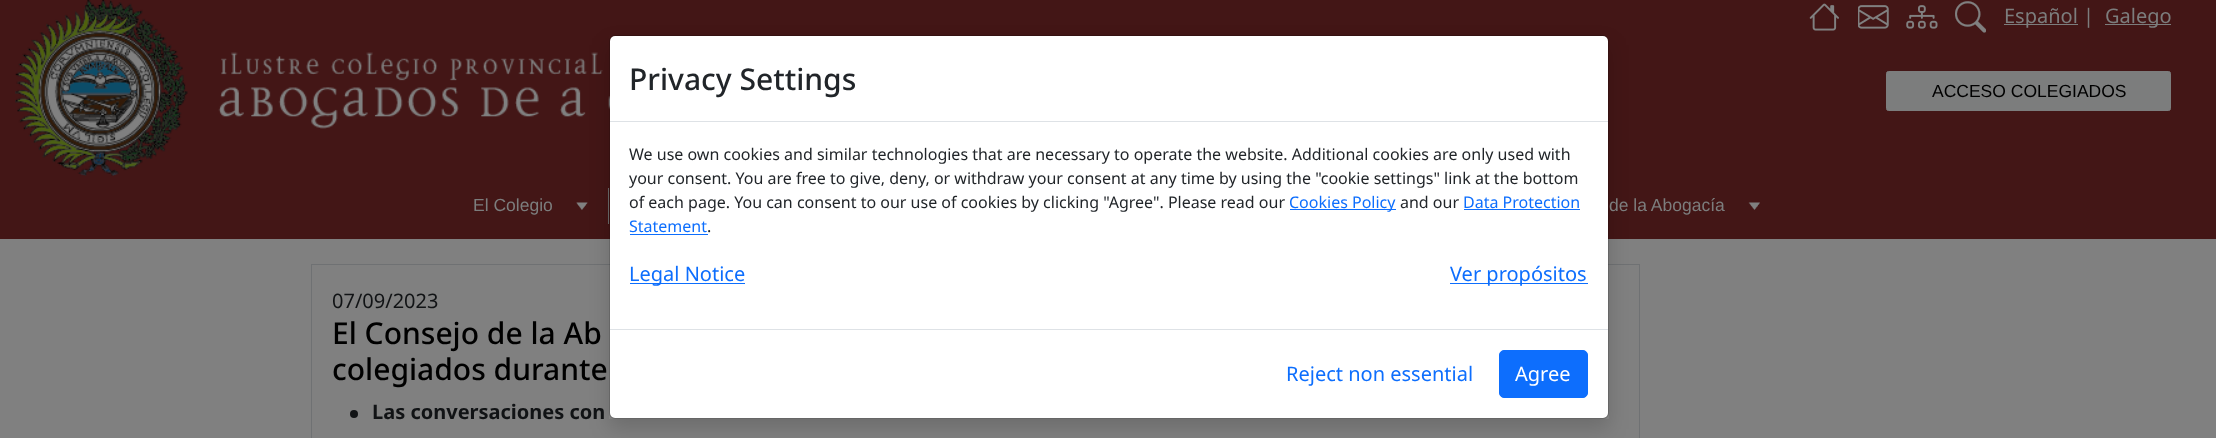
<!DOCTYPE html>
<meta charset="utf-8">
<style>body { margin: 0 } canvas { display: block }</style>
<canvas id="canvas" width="2216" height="438"></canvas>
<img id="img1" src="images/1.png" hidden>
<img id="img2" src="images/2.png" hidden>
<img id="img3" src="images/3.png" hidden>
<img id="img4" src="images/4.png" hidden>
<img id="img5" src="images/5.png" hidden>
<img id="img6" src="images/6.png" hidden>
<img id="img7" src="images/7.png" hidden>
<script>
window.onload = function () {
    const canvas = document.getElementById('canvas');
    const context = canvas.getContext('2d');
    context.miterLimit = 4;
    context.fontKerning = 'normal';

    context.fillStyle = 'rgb(128, 128, 128)';
    context.fillRect(0, 0, 2216, 438);
    context.fillStyle = 'rgb(67, 22, 22)';
    context.fillRect(0, 0, 2216, 176);
    context.drawImage(document.getElementById('img1'), 15, 0, 595, 176);
    context.drawImage(document.getElementById('img2'), 1809, 3, 30, 28);
    context.drawImage(document.getElementById('img3'), 1858, 5, 31, 24);
    context.drawImage(document.getElementById('img4'), 1906, 5, 32, 24);
    context.drawImage(document.getElementById('img5'), 1955, 1, 31, 32);
    context.fillStyle = 'rgb(124, 125, 125)';
    context.fillRect(2004, 24, 74, 1);
    context.fillRect(2105, 24, 66, 1);
    context.beginPath();
    context.roundRect(1886.5, 71.5, 284, 39, 2);
    context.fill();
    context.strokeStyle = 'rgb(124, 125, 125)';
    context.stroke();
    context.fillStyle = 'rgb(67, 22, 22)';
    context.fillRect(0, 176, 2216, 63);
    context.drawImage(document.getElementById('img6'), 576, 202, 12, 8);
    context.fillStyle = 'rgb(105, 105, 105)';
    context.fillRect(608, 188, 1, 36);
    context.drawImage(document.getElementById('img7'), 1748, 202, 12, 8);
    context.strokeStyle = 'rgb(111, 113, 115)';
    context.strokeRect(311.5, 264.5, 1328, 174);
    context.fillStyle = 'rgb(17, 19, 21)';
    context.beginPath();
    context.arc(354, 414, 4, 0, 2 * Math.PI);
    context.fill();
    context.save();
    context.beginPath();
    context.moveTo(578, 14);
    context.lineTo(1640, 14);
    context.lineTo(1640, 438);
    context.lineTo(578, 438);
    context.closePath();
    context.moveTo(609, 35);
    context.lineTo(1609, 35);
    context.lineTo(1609, 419);
    context.lineTo(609, 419);
    context.closePath();
    context.clip('evenodd');
    context.fillStyle = 'rgba(0, 0, 0, 0.15)';
    context.filter = 'blur(10px)';
    context.beginPath();
    context.rect(609, 45, 1000, 384);
    context.fill();
    context.filter = 'none';
    context.restore();
    context.fillStyle = 'rgb(255, 255, 255)';
    context.beginPath();
    context.roundRect(610, 36, 998, 382, 5);
    context.fill();
    context.beginPath();
    context.roundRect(609.5, 35.5, 999, 383, 5.5);
    context.strokeStyle = 'rgba(0, 0, 0, 0.2)';
    context.stroke();
    context.fillStyle = 'rgb(222, 226, 230)';
    context.fillRect(610, 121, 998, 1);
    context.fillStyle = 'rgb(13, 110, 253)';
    context.fillRect(1290, 209, 106, 1);
    context.fillRect(1464, 209, 116, 1);
    context.fillRect(630, 234, 78, 1);
    context.fillRect(630, 283, 115, 1);
    context.fillRect(1450, 283, 138, 1);
    context.fillStyle = 'rgb(222, 226, 230)';
    context.fillRect(610, 329, 998, 1);
    context.fillStyle = 'rgb(13, 110, 253)';
    context.beginPath();
    context.roundRect(1499.5, 350.5, 88, 47, 4.5);
    context.fill();
    context.strokeStyle = 'rgb(13, 110, 253)';
    context.stroke();
    context.font = '20px Noto Sans';
    context.fillStyle = 'rgb(124, 125, 125)';
    context.fillText('Español', 2004, 23);
    context.fillText('|', 2083, 23);
    context.fillText('Galego', 2105, 23);
    context.font = '17.5px Liberation Sans';
    context.fillStyle = 'rgb(0, 0, 0)';
    context.fillText('ACCESO COLEGIADOS', 1932, 97);
    context.fillStyle = 'rgb(124, 125, 125)';
    context.fillText('El Colegio', 473, 211);
    context.fillText('de la Abogacía', 1609, 211);
    context.font = '20px Noto Sans';
    context.fillStyle = 'rgb(17, 19, 21)';
    context.fillText('07/09/2023', 332, 308);
    context.font = '500 30px Noto Sans';
    context.fillStyle = 'rgb(0, 0, 0)';
    context.fillText('El Consejo de la Ab', 332, 344);
    context.fillText('colegiados durante', 332, 380);
    context.font = 'bold 20px Noto Sans';
    context.fillStyle = 'rgb(17, 19, 21)';
    context.fillText('Las conversaciones con', 372, 419);
    context.font = '500 30px Noto Sans';
    context.fillStyle = 'rgb(33, 37, 41)';
    context.fillText('Privacy Settings', 629, 90);
    context.font = '16px Noto Sans';
    context.fillText('We use own cookies and similar technologies that are necessary to operate the website. Additional cookies are only used with', 629, 160);
    context.fillText('your consent. You are free to give, deny, or withdraw your consent at any time by using the "cookie settings" link at the bottom', 629, 184);
    context.fillText('of each page. You can consent to our use of cookies by clicking "Agree". Please read our', 629, 208);
    context.fillStyle = 'rgb(13, 110, 253)';
    context.fillText('Cookies Policy', 1289, 208);
    context.fillStyle = 'rgb(33, 37, 41)';
    context.fillText('and our', 1400, 208);
    context.fillStyle = 'rgb(13, 110, 253)';
    context.fillText('Data Protection', 1463, 208);
    context.fillText('Statement', 629, 232);
    context.fillStyle = 'rgb(33, 37, 41)';
    context.fillText('.', 707, 232);
    context.font = '20px Noto Sans';
    context.fillStyle = 'rgb(13, 110, 253)';
    context.fillText('Legal Notice', 629, 281);
    context.fillText('Ver propósitos', 1450, 281);
    context.fillText('Reject non essential', 1286, 381);
    context.fillStyle = 'rgb(255, 255, 255)';
    context.fillText('Agree', 1515, 381);
};
</script>
